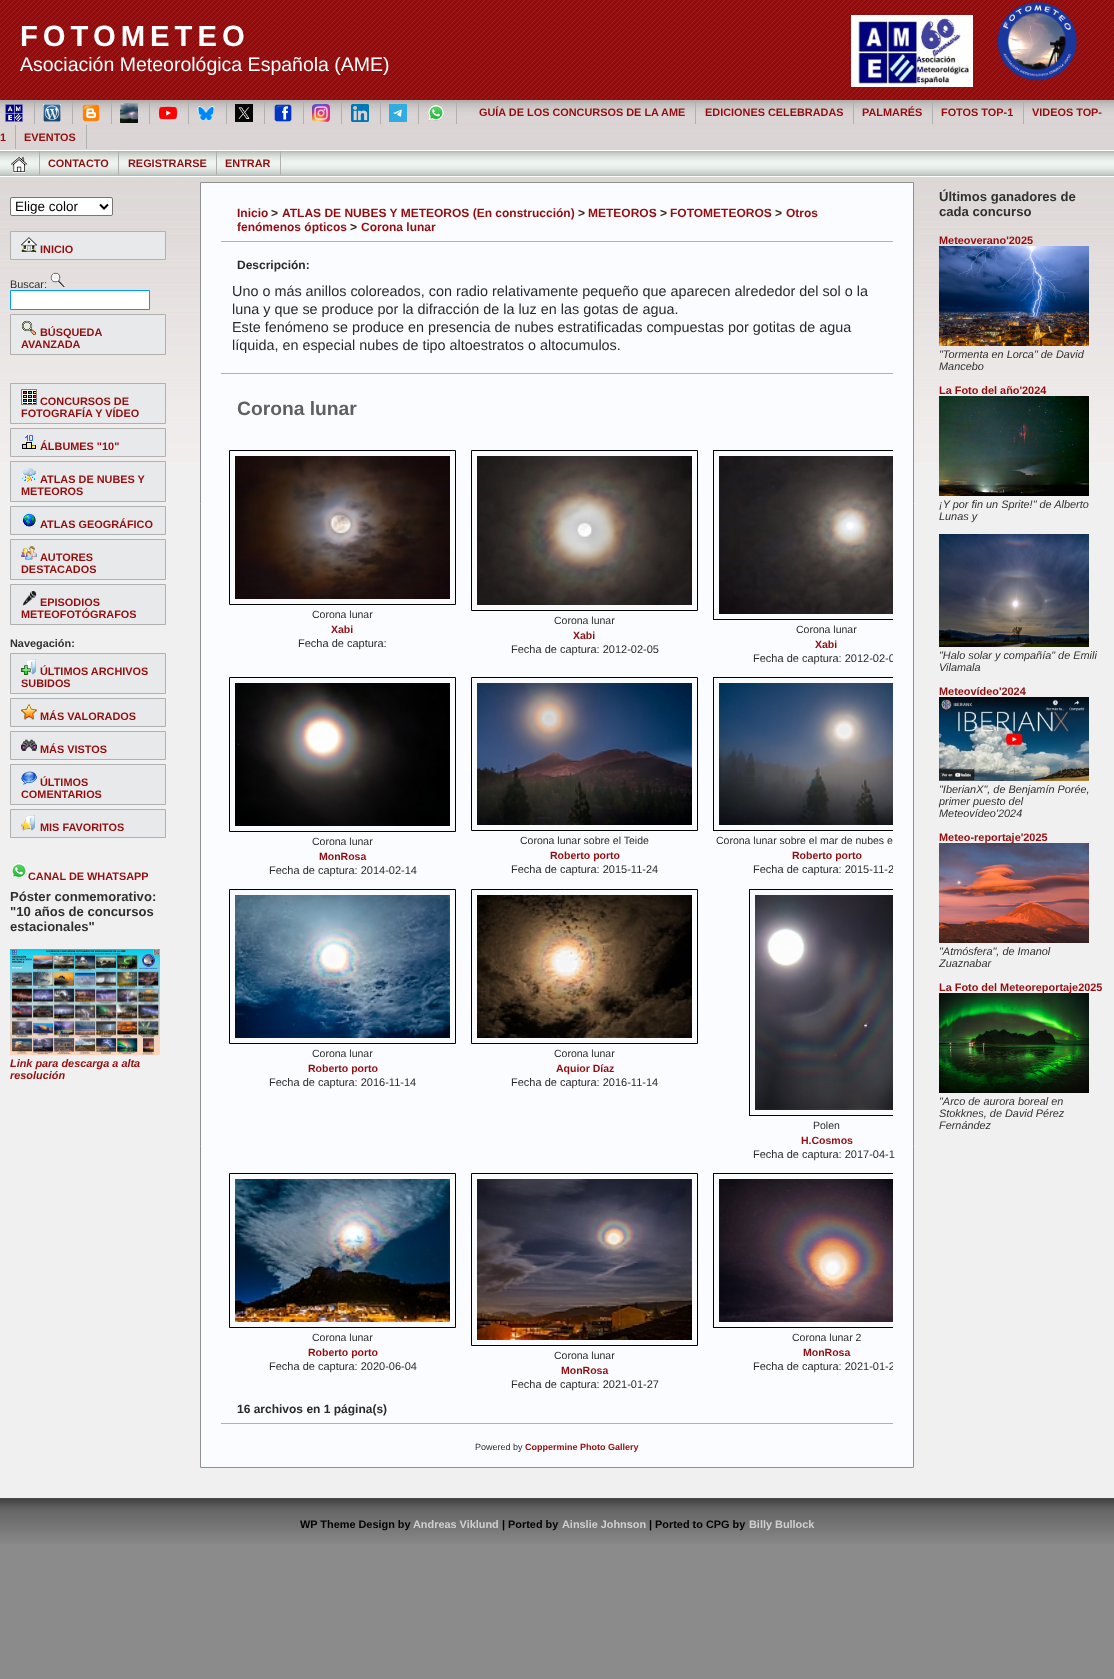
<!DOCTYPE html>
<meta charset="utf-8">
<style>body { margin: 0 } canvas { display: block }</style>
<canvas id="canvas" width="1114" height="1679"></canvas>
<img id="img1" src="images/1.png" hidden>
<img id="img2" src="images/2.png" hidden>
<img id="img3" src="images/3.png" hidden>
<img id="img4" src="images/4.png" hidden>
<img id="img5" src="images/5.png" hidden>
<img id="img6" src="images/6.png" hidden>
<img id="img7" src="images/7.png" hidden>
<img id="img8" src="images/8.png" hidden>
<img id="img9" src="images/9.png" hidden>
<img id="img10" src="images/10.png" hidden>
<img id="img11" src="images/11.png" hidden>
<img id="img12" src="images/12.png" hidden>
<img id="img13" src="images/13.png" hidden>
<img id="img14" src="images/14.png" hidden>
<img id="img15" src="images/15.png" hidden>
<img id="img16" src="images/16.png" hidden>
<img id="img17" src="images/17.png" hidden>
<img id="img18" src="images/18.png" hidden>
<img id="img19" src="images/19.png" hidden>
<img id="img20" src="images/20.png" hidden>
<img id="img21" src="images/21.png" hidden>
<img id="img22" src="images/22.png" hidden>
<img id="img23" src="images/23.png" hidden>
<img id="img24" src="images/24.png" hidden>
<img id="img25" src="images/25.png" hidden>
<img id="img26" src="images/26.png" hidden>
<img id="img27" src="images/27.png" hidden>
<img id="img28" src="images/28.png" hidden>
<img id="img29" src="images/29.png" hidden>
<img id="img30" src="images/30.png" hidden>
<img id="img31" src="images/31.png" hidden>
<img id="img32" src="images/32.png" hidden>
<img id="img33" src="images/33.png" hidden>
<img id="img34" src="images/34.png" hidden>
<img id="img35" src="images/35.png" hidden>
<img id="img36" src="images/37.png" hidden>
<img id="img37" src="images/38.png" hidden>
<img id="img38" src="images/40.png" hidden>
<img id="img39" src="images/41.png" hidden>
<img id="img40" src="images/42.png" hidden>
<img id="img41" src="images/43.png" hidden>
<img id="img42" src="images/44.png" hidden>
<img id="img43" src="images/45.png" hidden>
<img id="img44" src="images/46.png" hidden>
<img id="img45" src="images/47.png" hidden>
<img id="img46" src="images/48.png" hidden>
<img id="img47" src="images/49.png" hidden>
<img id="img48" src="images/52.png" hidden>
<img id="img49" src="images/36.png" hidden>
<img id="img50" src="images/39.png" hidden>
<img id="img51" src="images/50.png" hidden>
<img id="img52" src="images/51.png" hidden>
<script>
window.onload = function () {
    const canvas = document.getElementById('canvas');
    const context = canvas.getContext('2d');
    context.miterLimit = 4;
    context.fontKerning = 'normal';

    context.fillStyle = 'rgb(139, 139, 139)';
    context.fillRect(0, 0, 1114, 1679);
    context.fillStyle = 'rgb(240, 240, 240)';
    context.fillRect(0, 462, 1114, 1036);
    context.drawImage(document.getElementById('img1'), 0, 0, 1114, 462);
    context.drawImage(document.getElementById('img2'), 851, 15, 122, 72);
    context.drawImage(document.getElementById('img3'), 997, 2, 81, 79);
    context.drawImage(document.getElementById('img4'), 5, 104, 18, 18);
    context.fillStyle = 'rgb(176, 176, 176)';
    context.fillRect(34, 100, 1, 24);
    context.drawImage(document.getElementById('img5'), 43, 104, 18, 18);
    context.fillRect(72, 100, 1, 24);
    context.drawImage(document.getElementById('img6'), 82, 104, 18, 18);
    context.fillRect(111, 100, 1, 24);
    context.drawImage(document.getElementById('img7'), 120, 103, 18, 20);
    context.fillRect(149, 100, 1, 24);
    context.drawImage(document.getElementById('img8'), 159, 106, 18, 14);
    context.fillRect(188, 100, 1, 24);
    context.drawImage(document.getElementById('img9'), 197, 106, 18, 15);
    context.fillRect(226, 100, 1, 24);
    context.drawImage(document.getElementById('img10'), 235, 104, 18, 18);
    context.fillRect(264, 100, 1, 24);
    context.drawImage(document.getElementById('img11'), 274, 104, 18, 18);
    context.fillRect(303, 100, 1, 24);
    context.drawImage(document.getElementById('img12'), 312, 104, 18, 18);
    context.fillRect(341, 100, 1, 24);
    context.drawImage(document.getElementById('img13'), 351, 104, 18, 18);
    context.fillRect(380, 100, 1, 24);
    context.drawImage(document.getElementById('img14'), 389, 104, 18, 18);
    context.fillRect(418, 100, 1, 24);
    context.drawImage(document.getElementById('img15'), 428, 105, 16, 16);
    context.fillRect(456, 100, 1, 24);
    context.fillRect(695, 100, 1, 24);
    context.fillRect(853, 100, 1, 24);
    context.fillRect(932, 100, 1, 24);
    context.fillRect(1023, 100, 1, 24);
    context.fillRect(15, 125, 1, 24);
    context.fillRect(86, 125, 1, 24);
    context.drawImage(document.getElementById('img16'), 0, 151, 1114, 25);
    context.fillStyle = 'rgb(255, 255, 255)';
    context.fillRect(0, 150, 1114, 1);
    context.fillRect(0, 176, 1114, 1);
    context.drawImage(document.getElementById('img17'), 11, 157, 17, 16);
    context.fillStyle = 'rgb(176, 176, 176)';
    context.fillRect(39, 151, 1, 24);
    context.fillRect(118, 151, 1, 24);
    context.fillRect(216, 151, 1, 24);
    context.fillRect(280, 151, 1, 24);
    context.fillStyle = 'rgb(255, 255, 255)';
    context.beginPath();
    context.roundRect(10.5, 197.5, 102, 18, 1.5);
    context.fill();
    context.strokeStyle = 'rgb(118, 118, 118)';
    context.stroke();
    context.beginPath();
    context.moveTo(100, 204.5);
    context.lineTo(104, 208.5);
    context.lineTo(108, 204.5);
    context.strokeStyle = 'rgb(0, 0, 0)';
    context.lineWidth = 2;
    context.stroke();
    context.fillStyle = 'rgb(232, 233, 234)';
    context.beginPath();
    context.rect(10.5, 231.5, 155, 28);
    context.fill();
    context.strokeStyle = 'rgb(176, 176, 176)';
    context.lineWidth = 1;
    context.stroke();
    context.drawImage(document.getElementById('img18'), 21, 237, 16, 16);
    context.drawImage(document.getElementById('img19'), 50, 272, 16, 15);
    context.fillStyle = 'rgb(255, 255, 255)';
    context.beginPath();
    context.rect(10.5, 290.5, 139, 19);
    context.fill();
    context.strokeStyle = 'rgb(0, 153, 255)';
    context.stroke();
    context.fillStyle = 'rgb(232, 233, 234)';
    context.beginPath();
    context.rect(10.5, 314.5, 155, 40);
    context.fill();
    context.strokeStyle = 'rgb(176, 176, 176)';
    context.stroke();
    context.drawImage(document.getElementById('img20'), 21, 320, 16, 16);
    context.beginPath();
    context.rect(10.5, 383.5, 155, 40);
    context.fill();
    context.stroke();
    context.drawImage(document.getElementById('img21'), 21, 389, 16, 16);
    context.beginPath();
    context.rect(10.5, 428.5, 155, 28);
    context.fill();
    context.stroke();
    context.drawImage(document.getElementById('img22'), 22, 435, 14, 14);
    context.beginPath();
    context.rect(10.5, 461.5, 155, 40);
    context.fill();
    context.stroke();
    context.drawImage(document.getElementById('img23'), 22, 468, 14, 14);
    context.beginPath();
    context.rect(10.5, 506.5, 155, 28);
    context.fill();
    context.stroke();
    context.drawImage(document.getElementById('img24'), 23, 513, 13, 14);
    context.beginPath();
    context.rect(10.5, 539.5, 155, 40);
    context.fill();
    context.stroke();
    context.drawImage(document.getElementById('img25'), 21, 546, 16, 14);
    context.beginPath();
    context.rect(10.5, 584.5, 155, 40);
    context.fill();
    context.stroke();
    context.drawImage(document.getElementById('img26'), 22, 591, 15, 15);
    context.beginPath();
    context.rect(10.5, 653.5, 155, 40);
    context.fill();
    context.stroke();
    context.drawImage(document.getElementById('img27'), 21, 659, 15, 16);
    context.beginPath();
    context.rect(10.5, 698.5, 155, 28);
    context.fill();
    context.stroke();
    context.drawImage(document.getElementById('img28'), 21, 704, 16, 16);
    context.beginPath();
    context.rect(10.5, 731.5, 155, 28);
    context.fill();
    context.stroke();
    context.drawImage(document.getElementById('img29'), 21, 739, 16, 12);
    context.beginPath();
    context.rect(10.5, 764.5, 155, 40);
    context.fill();
    context.stroke();
    context.drawImage(document.getElementById('img30'), 21, 771, 16, 14);
    context.beginPath();
    context.rect(10.5, 809.5, 155, 28);
    context.fill();
    context.stroke();
    context.drawImage(document.getElementById('img31'), 21, 815, 14, 16);
    context.drawImage(document.getElementById('img32'), 11, 863, 16, 16);
    context.drawImage(document.getElementById('img33'), 10, 949, 150, 106);
    context.fillStyle = 'rgb(250, 252, 255)';
    context.beginPath();
    context.rect(200.5, 182.5, 713, 1285);
    context.fill();
    context.strokeStyle = 'rgb(144, 144, 144)';
    context.stroke();
    context.fillStyle = 'rgb(176, 176, 176)';
    context.fillRect(221, 241, 672, 1);
    context.fillRect(221, 373, 672, 1);
    context.fillRect(221, 1423, 672, 1);
    context.fillStyle = 'rgb(250, 251, 252)';
    context.beginPath();
    context.rect(229.5, 450.5, 226, 154);
    context.fill();
    context.strokeStyle = 'rgb(0, 0, 0)';
    context.stroke();
    context.drawImage(document.getElementById('img34'), 235, 456, 215, 143);
    context.beginPath();
    context.rect(471.5, 450.5, 226, 160);
    context.fill();
    context.stroke();
    context.drawImage(document.getElementById('img35'), 477, 456, 215, 149);
    context.fillRect(714, 451, 179, 168);
    context.beginPath();
    context.rect(229.5, 677.5, 226, 154);
    context.fill();
    context.stroke();
    context.drawImage(document.getElementById('img36'), 235, 683, 215, 143);
    context.beginPath();
    context.rect(471.5, 677.5, 226, 153);
    context.fill();
    context.stroke();
    context.drawImage(document.getElementById('img37'), 477, 683, 215, 142);
    context.fillRect(714, 678, 179, 152);
    context.beginPath();
    context.rect(229.5, 889.5, 226, 154);
    context.fill();
    context.stroke();
    context.drawImage(document.getElementById('img38'), 235, 895, 215, 143);
    context.beginPath();
    context.rect(471.5, 889.5, 226, 154);
    context.fill();
    context.stroke();
    context.drawImage(document.getElementById('img39'), 477, 895, 215, 143);
    context.fillRect(750, 890, 143, 225);
    context.save();
    context.beginPath();
    context.rect(221, 198, 672, 1264);
    context.clip();
    context.strokeRect(749.5, 889.5, 154, 226);
    context.restore();
    context.drawImage(document.getElementById('img40'), 755, 895, 138, 215);
    context.beginPath();
    context.rect(229.5, 1173.5, 226, 154);
    context.fill();
    context.stroke();
    context.drawImage(document.getElementById('img41'), 235, 1179, 215, 143);
    context.beginPath();
    context.rect(471.5, 1173.5, 226, 172);
    context.fill();
    context.stroke();
    context.drawImage(document.getElementById('img42'), 477, 1179, 215, 161);
    context.fillRect(714, 1174, 179, 153);
    context.save();
    context.beginPath();
    context.rect(221, 198, 672, 1264);
    context.clip();
    context.strokeRect(713.5, 1173.5, 226, 154);
    context.restore();
    context.drawImage(document.getElementById('img43'), 719, 1179, 174, 143);
    context.drawImage(document.getElementById('img44'), 939, 246, 150, 100);
    context.drawImage(document.getElementById('img45'), 939, 396, 150, 100);
    context.drawImage(document.getElementById('img46'), 939, 534, 150, 113);
    context.drawImage(document.getElementById('img47'), 939, 697, 150, 84);
    context.drawImage(document.getElementById('img48'), 0, 1498, 1114, 46);
    context.letterSpacing = '5px';
    context.font = 'bold 29.25px Liberation Sans';
    context.fillStyle = 'rgb(255, 255, 255)';
    context.fillText('FOTOMETEO', 20, 46);
    context.letterSpacing = '0px';
    context.font = '19.5px Liberation Sans';
    context.fillText('Asociación Meteorológica Española (AME)', 20, 71);
    context.font = 'bold 10.9px Liberation Sans';
    context.fillStyle = 'rgb(148, 12, 14)';
    context.fillText('GUÍA DE LOS CONCURSOS DE LA AME', 479, 116);
    context.fillText('EDICIONES CELEBRADAS', 705, 116);
    context.fillText('PALMARÉS', 862, 116);
    context.fillText('FOTOS TOP-1', 941, 116);
    context.fillText('VIDEOS TOP-', 1032, 116);
    context.fillText('1', 0, 141);
    context.fillText('EVENTOS', 24, 141);
    context.fillText('CONTACTO', 48, 167);
    context.fillText('REGISTRARSE', 128, 167);
    context.fillText('ENTRAR', 225, 167);
    context.font = '13.5px Liberation Sans';
    context.fillStyle = 'rgb(0, 0, 0)';
    context.fillText('Elige color', 15, 211);
    context.font = 'bold 10.9px Liberation Sans';
    context.fillStyle = 'rgb(148, 12, 14)';
    context.fillText('INICIO', 40, 253);
    context.font = '10.9px Liberation Sans';
    context.fillStyle = 'rgb(48, 48, 48)';
    context.fillText('Buscar:', 10, 288);
    context.font = 'bold 10.9px Liberation Sans';
    context.fillStyle = 'rgb(148, 12, 14)';
    context.fillText('BÚSQUEDA', 40, 336);
    context.fillText('AVANZADA', 21, 348);
    context.fillText('CONCURSOS DE', 40, 405);
    context.fillText('FOTOGRAFÍA Y VÍDEO', 21, 417);
    context.fillText('ÁLBUMES "10"', 40, 450);
    context.fillText('ATLAS DE NUBES Y', 40, 483);
    context.fillText('METEOROS', 21, 495);
    context.fillText('ATLAS GEOGRÁFICO', 40, 528);
    context.fillText('AUTORES', 40, 561);
    context.fillText('DESTACADOS', 21, 573);
    context.fillText('EPISODIOS', 40, 606);
    context.fillText('METEOFOTÓGRAFOS', 21, 618);
    context.fillStyle = 'rgb(48, 48, 48)';
    context.fillText('Navegación:', 10, 647);
    context.fillStyle = 'rgb(148, 12, 14)';
    context.fillText('ÚLTIMOS ARCHIVOS', 40, 675);
    context.fillText('SUBIDOS', 21, 687);
    context.fillText('MÁS VALORADOS', 40, 720);
    context.fillText('MÁS VISTOS', 40, 753);
    context.fillText('ÚLTIMOS', 40, 786);
    context.fillText('COMENTARIOS', 21, 798);
    context.fillText('MIS FAVORITOS', 40, 831);
    context.fillText('CANAL DE WHATSAPP', 28, 880);
    context.font = 'bold 13.1px Liberation Sans';
    context.fillStyle = 'rgb(48, 48, 48)';
    context.fillText('Póster conmemorativo:', 10, 901);
    context.fillText('"10 años de concursos', 10, 916);
    context.fillText('estacionales"', 10, 931);
    context.font = 'italic bold 10.9px Liberation Sans';
    context.fillStyle = 'rgb(148, 12, 14)';
    context.fillText('Link para descarga a alta', 10, 1067);
    context.fillText('resolución', 10, 1079);
    context.font = 'bold 12px Liberation Sans';
    context.fillText('Inicio', 237, 217);
    context.fillStyle = 'rgb(55, 37, 15)';
    context.fillText('>', 271, 217);
    context.fillStyle = 'rgb(148, 12, 14)';
    context.fillText('ATLAS DE NUBES Y METEOROS (En construcción)', 282, 217);
    context.fillStyle = 'rgb(55, 37, 15)';
    context.fillText('>', 578, 217);
    context.fillStyle = 'rgb(148, 12, 14)';
    context.fillText('METEOROS', 588, 217);
    context.fillStyle = 'rgb(55, 37, 15)';
    context.fillText('>', 660, 217);
    context.fillStyle = 'rgb(148, 12, 14)';
    context.fillText('FOTOMETEOROS', 670, 217);
    context.fillStyle = 'rgb(55, 37, 15)';
    context.fillText('>', 775, 217);
    context.fillStyle = 'rgb(148, 12, 14)';
    context.fillText('Otros', 786, 217);
    context.fillText('fenómenos ópticos', 237, 231);
    context.fillStyle = 'rgb(55, 37, 15)';
    context.fillText('>', 350, 231);
    context.fillStyle = 'rgb(148, 12, 14)';
    context.fillText('Corona lunar', 361, 231);
    context.fillStyle = 'rgb(42, 42, 42)';
    context.fillText('Descripción:', 237, 269);
    context.font = '14.4px Liberation Sans';
    context.fillText('Uno o más anillos coloreados, con radio relativamente pequeño que aparecen alrededor del sol o la', 232, 296);
    context.fillText('luna y que se produce por la difracción de la luz en las gotas de agua.', 232, 314);
    context.fillText('Este fenómeno se produce en presencia de nubes estratificadas compuestas por gotitas de agua', 232, 332);
    context.fillText('líquida, en especial nubes de tipo altoestratos o altocumulos.', 232, 350);
    context.font = 'bold 19.25px Liberation Sans';
    context.fillStyle = 'rgb(96, 96, 96)';
    context.fillText('Corona lunar', 237, 415);
    context.font = '10.5px Liberation Sans';
    context.fillStyle = 'rgb(42, 42, 42)';
    context.fillText('Corona lunar', 312, 618);
    context.font = 'bold 10.5px Liberation Sans';
    context.fillStyle = 'rgb(148, 12, 14)';
    context.fillText('Xabi', 331, 633);
    context.font = '11px Liberation Sans';
    context.fillStyle = 'rgb(42, 42, 42)';
    context.fillText('Fecha de captura:', 298, 647);
    context.font = '10.5px Liberation Sans';
    context.fillText('Corona lunar', 554, 624);
    context.font = 'bold 10.5px Liberation Sans';
    context.fillStyle = 'rgb(148, 12, 14)';
    context.fillText('Xabi', 573, 639);
    context.font = '11px Liberation Sans';
    context.fillStyle = 'rgb(42, 42, 42)';
    context.fillText('Fecha de captura: 2012-02-05', 511, 653);
    context.font = '10.5px Liberation Sans';
    context.fillText('Corona lunar', 796, 633);
    context.font = 'bold 10.5px Liberation Sans';
    context.fillStyle = 'rgb(148, 12, 14)';
    context.fillText('Xabi', 815, 648);
    context.save();
    context.beginPath();
    context.rect(221, 198, 672, 1264);
    context.clip();
    context.font = '11px Liberation Sans';
    context.fillStyle = 'rgb(42, 42, 42)';
    context.fillText('Fecha de captura: 2012-02-0', 753, 662);
    context.restore();
    context.font = '10.5px Liberation Sans';
    context.fillStyle = 'rgb(42, 42, 42)';
    context.fillText('Corona lunar', 312, 845);
    context.font = 'bold 10.5px Liberation Sans';
    context.fillStyle = 'rgb(148, 12, 14)';
    context.fillText('MonRosa', 319, 860);
    context.font = '11px Liberation Sans';
    context.fillStyle = 'rgb(42, 42, 42)';
    context.fillText('Fecha de captura: 2014-02-14', 269, 874);
    context.font = '10.5px Liberation Sans';
    context.fillText('Corona lunar sobre el Teide', 520, 844);
    context.font = 'bold 10.5px Liberation Sans';
    context.fillStyle = 'rgb(148, 12, 14)';
    context.fillText('Roberto porto', 550, 859);
    context.font = '11px Liberation Sans';
    context.fillStyle = 'rgb(42, 42, 42)';
    context.fillText('Fecha de captura: 2015-11-24', 511, 873);
    context.font = '10.5px Liberation Sans';
    context.fillText('Corona lunar sobre el mar de nubes e', 716, 844);
    context.font = 'bold 10.5px Liberation Sans';
    context.fillStyle = 'rgb(148, 12, 14)';
    context.fillText('Roberto porto', 792, 859);
    context.save();
    context.beginPath();
    context.rect(221, 198, 672, 1264);
    context.clip();
    context.font = '11px Liberation Sans';
    context.fillStyle = 'rgb(42, 42, 42)';
    context.fillText('Fecha de captura: 2015-11-2', 753, 873);
    context.restore();
    context.font = '10.5px Liberation Sans';
    context.fillStyle = 'rgb(42, 42, 42)';
    context.fillText('Corona lunar', 312, 1057);
    context.font = 'bold 10.5px Liberation Sans';
    context.fillStyle = 'rgb(148, 12, 14)';
    context.fillText('Roberto porto', 308, 1072);
    context.font = '11px Liberation Sans';
    context.fillStyle = 'rgb(42, 42, 42)';
    context.fillText('Fecha de captura: 2016-11-14', 269, 1086);
    context.font = '10.5px Liberation Sans';
    context.fillText('Corona lunar', 554, 1057);
    context.font = 'bold 10.5px Liberation Sans';
    context.fillStyle = 'rgb(148, 12, 14)';
    context.fillText('Aquior Díaz', 556, 1072);
    context.font = '11px Liberation Sans';
    context.fillStyle = 'rgb(42, 42, 42)';
    context.fillText('Fecha de captura: 2016-11-14', 511, 1086);
    context.font = '10.5px Liberation Sans';
    context.fillText('Polen', 813, 1129);
    context.font = 'bold 10.5px Liberation Sans';
    context.fillStyle = 'rgb(148, 12, 14)';
    context.fillText('H.Cosmos', 801, 1144);
    context.font = '11px Liberation Sans';
    context.fillStyle = 'rgb(42, 42, 42)';
    context.fillText('Fecha de captura: 2017-04-1', 753, 1158);
    context.font = '10.5px Liberation Sans';
    context.fillText('Corona lunar', 312, 1341);
    context.font = 'bold 10.5px Liberation Sans';
    context.fillStyle = 'rgb(148, 12, 14)';
    context.fillText('Roberto porto', 308, 1356);
    context.font = '11px Liberation Sans';
    context.fillStyle = 'rgb(42, 42, 42)';
    context.fillText('Fecha de captura: 2020-06-04', 269, 1370);
    context.font = '10.5px Liberation Sans';
    context.fillText('Corona lunar', 554, 1359);
    context.font = 'bold 10.5px Liberation Sans';
    context.fillStyle = 'rgb(148, 12, 14)';
    context.fillText('MonRosa', 561, 1374);
    context.font = '11px Liberation Sans';
    context.fillStyle = 'rgb(42, 42, 42)';
    context.fillText('Fecha de captura: 2021-01-27', 511, 1388);
    context.font = '10.5px Liberation Sans';
    context.fillText('Corona lunar 2', 792, 1341);
    context.font = 'bold 10.5px Liberation Sans';
    context.fillStyle = 'rgb(148, 12, 14)';
    context.fillText('MonRosa', 803, 1356);
    context.save();
    context.beginPath();
    context.rect(221, 198, 672, 1264);
    context.clip();
    context.font = '11px Liberation Sans';
    context.fillStyle = 'rgb(42, 42, 42)';
    context.fillText('Fecha de captura: 2021-01-2', 753, 1370);
    context.restore();
    context.font = 'bold 12px Liberation Sans';
    context.fillStyle = 'rgb(42, 42, 42)';
    context.fillText('16 archivos en 1 página(s)', 237, 1413);
    context.font = '9px Liberation Sans';
    context.fillText('Powered by', 475, 1450);
    context.font = 'bold 9px Liberation Sans';
    context.fillStyle = 'rgb(148, 12, 14)';
    context.fillText('Coppermine Photo Gallery', 525, 1450);
    context.font = 'bold 13.1px Liberation Sans';
    context.fillStyle = 'rgb(48, 48, 48)';
    context.fillText('Últimos ganadores de', 939, 201);
    context.fillText('cada concurso', 939, 216);
    context.font = 'bold 10.9px Liberation Sans';
    context.fillStyle = 'rgb(148, 12, 14)';
    context.fillText('Meteoverano\'2025', 939, 244);
    context.font = 'italic 10.9px Liberation Sans';
    context.fillStyle = 'rgb(48, 48, 48)';
    context.fillText('"Tormenta en Lorca" de David', 939, 358);
    context.fillText('Mancebo', 939, 370);
    context.font = 'bold 10.9px Liberation Sans';
    context.fillStyle = 'rgb(148, 12, 14)';
    context.fillText('La Foto del año\'2024', 939, 394);
    context.font = 'italic 10.9px Liberation Sans';
    context.fillStyle = 'rgb(48, 48, 48)';
    context.fillText('¡Y por fin un Sprite!" de Alberto', 939, 508);
    context.fillText('Lunas y', 939, 520);
    context.save();
    context.beginPath();
    context.rect(221, 198, 672, 1264);
    context.clip();
    context.strokeRect(713.5, 450.5, 226, 169);
    context.restore();
    context.drawImage(document.getElementById('img49'), 719, 456, 174, 158);
    context.fillText('"Halo solar y compañía" de Emili', 939, 659);
    context.fillText('Vilamala', 939, 671);
    context.font = 'bold 10.9px Liberation Sans';
    context.fillStyle = 'rgb(148, 12, 14)';
    context.fillText('Meteovídeo\'2024', 939, 695);
    context.font = 'italic 10.9px Liberation Sans';
    context.fillStyle = 'rgb(48, 48, 48)';
    context.fillText('"IberianX", de Benjamín Porée,', 939, 793);
    context.fillText('primer puesto del', 939, 805);
    context.fillText('Meteovídeo\'2024', 939, 817);
    context.save();
    context.beginPath();
    context.rect(221, 198, 672, 1264);
    context.clip();
    context.strokeRect(713.5, 677.5, 226, 153);
    context.restore();
    context.drawImage(document.getElementById('img50'), 719, 683, 174, 142);
    context.font = 'bold 10.9px Liberation Sans';
    context.fillStyle = 'rgb(148, 12, 14)';
    context.fillText('Meteo-reportaje\'2025', 939, 841);
    context.drawImage(document.getElementById('img51'), 939, 843, 150, 100);
    context.font = 'italic 10.9px Liberation Sans';
    context.fillStyle = 'rgb(48, 48, 48)';
    context.fillText('"Atmósfera", de Imanol', 939, 955);
    context.fillText('Zuaznabar', 939, 967);
    context.font = 'bold 10.9px Liberation Sans';
    context.fillStyle = 'rgb(148, 12, 14)';
    context.fillText('La Foto del Meteoreportaje2025', 939, 991);
    context.drawImage(document.getElementById('img52'), 939, 993, 150, 100);
    context.font = 'italic 10.9px Liberation Sans';
    context.fillStyle = 'rgb(48, 48, 48)';
    context.fillText('"Arco de aurora boreal en', 939, 1105);
    context.fillText('Stokknes, de David Pérez', 939, 1117);
    context.fillText('Fernández', 939, 1129);
    context.font = 'bold 10.9px Liberation Sans';
    context.fillStyle = 'rgb(0, 0, 0)';
    context.fillText('WP Theme Design by', 300, 1528);
    context.fillStyle = 'rgb(208, 208, 208)';
    context.fillText('Andreas Viklund', 413, 1528);
    context.fillStyle = 'rgb(0, 0, 0)';
    context.fillText('| Ported by', 502, 1528);
    context.fillStyle = 'rgb(208, 208, 208)';
    context.fillText('Ainslie Johnson', 562, 1528);
    context.fillStyle = 'rgb(0, 0, 0)';
    context.fillText('| Ported to CPG by', 649, 1528);
    context.fillStyle = 'rgb(208, 208, 208)';
    context.fillText('Billy Bullock', 749, 1528);
};
</script>
